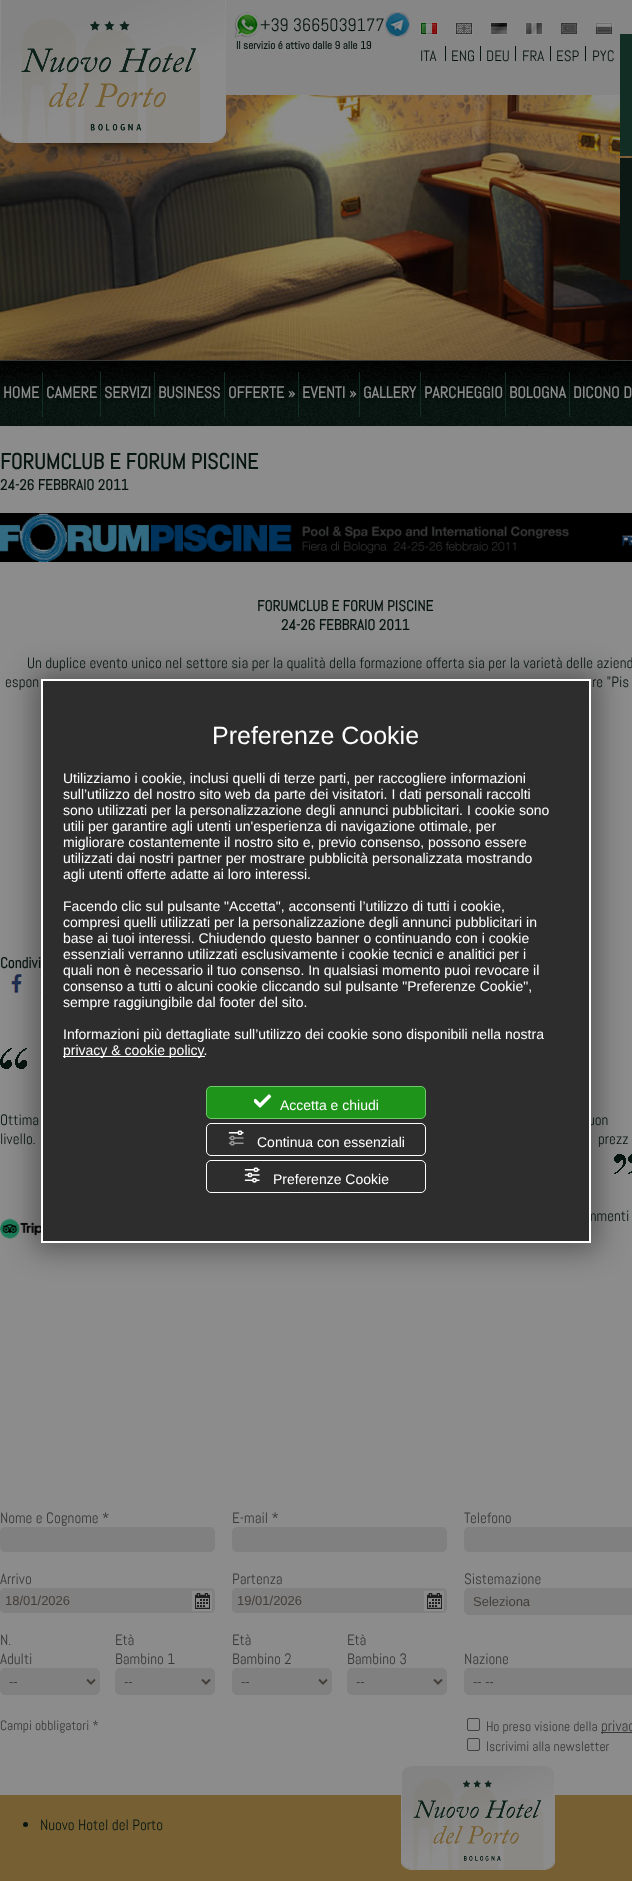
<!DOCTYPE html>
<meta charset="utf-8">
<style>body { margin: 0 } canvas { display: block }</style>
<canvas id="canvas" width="632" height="1881"></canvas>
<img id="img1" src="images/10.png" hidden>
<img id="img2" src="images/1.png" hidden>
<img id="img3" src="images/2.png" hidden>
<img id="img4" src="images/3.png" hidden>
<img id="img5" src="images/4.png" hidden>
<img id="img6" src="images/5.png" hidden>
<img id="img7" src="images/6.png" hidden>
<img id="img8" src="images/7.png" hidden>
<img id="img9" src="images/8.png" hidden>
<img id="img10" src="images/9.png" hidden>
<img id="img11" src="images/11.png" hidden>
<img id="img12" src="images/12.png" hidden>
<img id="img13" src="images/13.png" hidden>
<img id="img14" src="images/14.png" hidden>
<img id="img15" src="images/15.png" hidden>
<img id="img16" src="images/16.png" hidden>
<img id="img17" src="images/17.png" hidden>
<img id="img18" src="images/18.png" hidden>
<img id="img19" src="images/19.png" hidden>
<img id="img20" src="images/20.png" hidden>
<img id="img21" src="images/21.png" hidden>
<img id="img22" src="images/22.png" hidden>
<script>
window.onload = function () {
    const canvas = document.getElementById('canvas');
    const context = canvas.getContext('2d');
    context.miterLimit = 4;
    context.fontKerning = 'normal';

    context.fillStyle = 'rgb(134, 134, 134)';
    context.fillRect(0, 0, 632, 1881);
    context.drawImage(document.getElementById('img1'), 0, 95, 632, 265);
    context.drawImage(document.getElementById('img2'), 0, 0, 226, 158);
    context.drawImage(document.getElementById('img3'), 234, 12, 26, 26);
    context.drawImage(document.getElementById('img4'), 385, 12, 25, 25);
    context.drawImage(document.getElementById('img5'), 420, 22, 18, 13);
    context.drawImage(document.getElementById('img6'), 455, 22, 18, 13);
    context.drawImage(document.getElementById('img7'), 490, 22, 18, 13);
    context.drawImage(document.getElementById('img8'), 525, 22, 18, 13);
    context.drawImage(document.getElementById('img9'), 560, 22, 18, 13);
    context.drawImage(document.getElementById('img10'), 595, 22, 18, 13);
    context.fillStyle = 'rgb(7, 21, 17)';
    context.fillRect(445, 46, 1, 15);
    context.fillRect(480, 46, 1, 15);
    context.fillRect(515, 46, 1, 15);
    context.fillRect(550, 46, 1, 15);
    context.fillRect(585, 46, 1, 15);
    context.fillStyle = 'rgb(18, 45, 36)';
    context.fillRect(620, 34, 12, 122);
    context.fillStyle = 'rgb(11, 24, 20)';
    context.fillRect(620, 158, 12, 122);
    context.drawImage(document.getElementById('img11'), 0, 360, 632, 67);
    context.fillStyle = 'rgb(18, 45, 36)';
    context.fillRect(42, 372, 1, 45);
    context.fillRect(100, 372, 1, 45);
    context.fillRect(154, 372, 1, 45);
    context.fillRect(224, 372, 1, 45);
    context.fillRect(298, 372, 1, 45);
    context.fillRect(359, 372, 1, 45);
    context.fillRect(420, 372, 1, 45);
    context.fillRect(505, 372, 1, 45);
    context.fillRect(569, 372, 1, 45);
    context.fillStyle = 'rgb(140, 140, 140)';
    context.fillRect(0, 427, 632, 1368);
    context.drawImage(document.getElementById('img12'), 0, 513, 632, 49);
    context.drawImage(document.getElementById('img13'), 11, 974, 11, 19);
    context.drawImage(document.getElementById('img14'), 40, 974, 1, 19);
    context.drawImage(document.getElementById('img15'), 0, 1048, 27, 21);
    context.drawImage(document.getElementById('img16'), 614, 1154, 18, 20);
    context.drawImage(document.getElementById('img17'), 0, 1218, 41, 21);
    context.fillStyle = 'rgb(128, 128, 128)';
    context.beginPath();
    context.roundRect(0.5, 1527.5, 214, 24, 4.5);
    context.fill();
    context.strokeStyle = 'rgb(128, 128, 128)';
    context.stroke();
    context.beginPath();
    context.roundRect(0, 1588, 215, 25, 5);
    context.fill();
    context.drawImage(document.getElementById('img18'), 192, 1591, 20, 20);
    context.beginPath();
    context.roundRect(0.5, 1588.5, 214, 24, 4.5);
    context.stroke();
    context.beginPath();
    context.roundRect(0.5, 1668.5, 99, 26, 4.5);
    context.fill();
    context.stroke();
    context.beginPath();
    context.moveTo(87, 1679.5);
    context.lineTo(91, 1683.5);
    context.lineTo(95, 1679.5);
    context.strokeStyle = 'rgb(68, 62, 57)';
    context.lineWidth = 2;
    context.stroke();
    context.beginPath();
    context.roundRect(115.5, 1668.5, 99, 26, 4.5);
    context.fill();
    context.strokeStyle = 'rgb(128, 128, 128)';
    context.lineWidth = 1;
    context.stroke();
    context.beginPath();
    context.moveTo(202, 1679.5);
    context.lineTo(206, 1683.5);
    context.lineTo(210, 1679.5);
    context.strokeStyle = 'rgb(68, 62, 57)';
    context.lineWidth = 2;
    context.stroke();
    context.beginPath();
    context.roundRect(232.5, 1527.5, 214, 24, 4.5);
    context.fill();
    context.strokeStyle = 'rgb(128, 128, 128)';
    context.lineWidth = 1;
    context.stroke();
    context.beginPath();
    context.roundRect(232, 1588, 215, 25, 5);
    context.fill();
    context.drawImage(document.getElementById('img18'), 424, 1591, 20, 20);
    context.beginPath();
    context.roundRect(232.5, 1588.5, 214, 24, 4.5);
    context.stroke();
    context.beginPath();
    context.roundRect(232.5, 1668.5, 99, 26, 4.5);
    context.fill();
    context.stroke();
    context.beginPath();
    context.moveTo(319, 1679.5);
    context.lineTo(323, 1683.5);
    context.lineTo(327, 1679.5);
    context.strokeStyle = 'rgb(68, 62, 57)';
    context.lineWidth = 2;
    context.stroke();
    context.beginPath();
    context.roundRect(347.5, 1668.5, 99, 26, 4.5);
    context.fill();
    context.strokeStyle = 'rgb(128, 128, 128)';
    context.lineWidth = 1;
    context.stroke();
    context.beginPath();
    context.moveTo(434, 1679.5);
    context.lineTo(438, 1683.5);
    context.lineTo(442, 1679.5);
    context.strokeStyle = 'rgb(68, 62, 57)';
    context.lineWidth = 2;
    context.stroke();
    context.beginPath();
    context.roundRect(464.5, 1527.5, 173, 24, 4.5);
    context.fill();
    context.strokeStyle = 'rgb(128, 128, 128)';
    context.lineWidth = 1;
    context.stroke();
    context.beginPath();
    context.roundRect(464.5, 1588.5, 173, 26, 4.5);
    context.fill();
    context.stroke();
    context.beginPath();
    context.roundRect(464.5, 1668.5, 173, 26, 4.5);
    context.fill();
    context.stroke();
    context.beginPath();
    context.roundRect(467.5, 1718.5, 12, 12, 1.5);
    context.strokeStyle = 'rgb(65, 65, 65)';
    context.stroke();
    context.fillStyle = 'rgb(56, 56, 56)';
    context.fillRect(601, 1732, 31, 1);
    context.beginPath();
    context.roundRect(467.5, 1738.5, 12, 12, 1.5);
    context.stroke();
    context.fillStyle = 'rgb(118, 96, 51)';
    context.fillRect(0, 1795, 632, 86);
    context.fillStyle = 'rgb(7, 21, 17)';
    context.beginPath();
    context.arc(25.5, 1824.5, 2.5, 0, 2 * Math.PI);
    context.fill();
    context.drawImage(document.getElementById('img19'), 401, 1766, 154, 104);
    context.fillStyle = 'rgba(0, 0, 0, 0.38)';
    context.filter = 'blur(14.5px)';
    context.beginPath();
    context.rect(34, 672, 564, 578);
    context.fill();
    context.filter = 'none';
    context.font = '18px Abel';
    context.fillStyle = 'rgb(7, 21, 17)';
    context.fillText('+39 3665039177', 260, 31);
    context.font = 'bold 11px Abel';
    context.fillText('Il servizio é attivo dalle 9 alle 19', 236, 49);
    context.font = '15px Abel';
    context.fillText('ITA', 420, 61);
    context.fillText('ENG', 451, 61);
    context.fillText('DEU', 486, 61);
    context.fillText('FRA', 522, 61);
    context.fillText('ESP', 556, 61);
    context.fillText('PYC', 592, 61);
    context.font = 'bold 16px Abel';
    context.fillStyle = 'rgb(140, 140, 140)';
    context.fillText('HOME', 3, 398);
    context.fillText('CAMERE', 46, 398);
    context.fillText('SERVIZI', 104, 398);
    context.fillText('BUSINESS', 158, 398);
    context.fillText('OFFERTE »', 228, 398);
    context.fillText('EVENTI »', 302, 398);
    context.fillText('GALLERY', 363, 398);
    context.fillText('PARCHEGGIO', 424, 398);
    context.fillText('BOLOGNA', 509, 398);
    context.fillText('DICONO D', 573, 398);
    context.font = 'bold 22px Abel';
    context.fillStyle = 'rgb(7, 21, 17)';
    context.fillText('FORUMCLUB E FORUM PISCINE', 0, 469);
    context.font = 'bold 15px Abel';
    context.fillText('24-26 FEBBRAIO 2011', 0, 490);
    context.fillText('FORUMCLUB E FORUM PISCINE', 257, 611);
    context.fillText('24-26 FEBBRAIO 2011', 281, 630);
    context.font = '15px Abel';
    context.fillText('Un duplice evento unico nel settore sia per la qualità della formazione offerta sia per la varietà delle aziend', 27, 668);
    context.fillText('espon', 5, 687);
    context.fillText('re "Pis', 592, 687);
    context.font = 'bold 15px Abel';
    context.fillText('Condivi', 0, 968);
    context.font = '15px Abel';
    context.fillText('Ottima', 0, 1125);
    context.fillText('uon', 588, 1125);
    context.fillText('livello.', 0, 1144);
    context.fillText('prezz', 598, 1144);
    context.fillText('mmenti', 586, 1221);
    context.fillStyle = 'rgb(56, 56, 56)';
    context.fillText('Nome e Cognome *', 0, 1523);
    context.fillText('Arrivo', 0, 1584);
    context.font = '13px Liberation Sans';
    context.fillStyle = 'rgb(68, 62, 57)';
    context.fillText('18/01/2026', 5, 1605);
    context.font = '15px Abel';
    context.fillStyle = 'rgb(56, 56, 56)';
    context.fillText('N.', 0, 1645);
    context.fillText('Adulti', 0, 1664);
    context.font = '13px Liberation Sans';
    context.fillStyle = 'rgb(68, 62, 57)';
    context.fillText('--', 9, 1686);
    context.font = '15px Abel';
    context.fillStyle = 'rgb(56, 56, 56)';
    context.fillText('Età', 115, 1645);
    context.fillText('Bambino 1', 115, 1664);
    context.font = '13px Liberation Sans';
    context.fillStyle = 'rgb(68, 62, 57)';
    context.fillText('--', 124, 1686);
    context.font = '15px Abel';
    context.fillStyle = 'rgb(56, 56, 56)';
    context.fillText('E-mail *', 232, 1523);
    context.fillText('Partenza', 232, 1584);
    context.font = '13px Liberation Sans';
    context.fillStyle = 'rgb(68, 62, 57)';
    context.fillText('19/01/2026', 237, 1605);
    context.font = '15px Abel';
    context.fillStyle = 'rgb(56, 56, 56)';
    context.fillText('Età', 232, 1645);
    context.fillText('Bambino 2', 232, 1664);
    context.font = '13px Liberation Sans';
    context.fillStyle = 'rgb(68, 62, 57)';
    context.fillText('--', 241, 1686);
    context.font = '15px Abel';
    context.fillStyle = 'rgb(56, 56, 56)';
    context.fillText('Età', 347, 1645);
    context.fillText('Bambino 3', 347, 1664);
    context.font = '13px Liberation Sans';
    context.fillStyle = 'rgb(68, 62, 57)';
    context.fillText('--', 356, 1686);
    context.font = '15px Abel';
    context.fillStyle = 'rgb(56, 56, 56)';
    context.fillText('Telefono', 464, 1523);
    context.fillText('Sistemazione', 464, 1584);
    context.font = '13px Liberation Sans';
    context.fillStyle = 'rgb(68, 62, 57)';
    context.fillText('Seleziona', 473, 1606);
    context.font = '15px Abel';
    context.fillStyle = 'rgb(56, 56, 56)';
    context.fillText('Nazione', 464, 1664);
    context.font = '13px Liberation Sans';
    context.fillStyle = 'rgb(68, 62, 57)';
    context.fillText('-- --', 473, 1686);
    context.font = '13.5px Abel';
    context.fillStyle = 'rgb(56, 56, 56)';
    context.fillText('Campi obbligatori *', 0, 1730);
    context.fillText('Ho preso visione della', 486, 1731);
    context.font = '15px Abel';
    context.fillText('privac', 601, 1731);
    context.font = '13.5px Abel';
    context.fillText('Iscrivimi alla newsletter', 486, 1751);
    context.font = '15px Abel';
    context.fillStyle = 'rgb(7, 21, 17)';
    context.fillText('Nuovo Hotel del Porto', 40, 1830);
    context.fillStyle = 'rgb(45, 45, 45)';
    context.beginPath();
    context.rect(42, 680, 548, 562);
    context.fill();
    context.strokeStyle = 'rgb(255, 255, 255)';
    context.lineWidth = 2;
    context.stroke();
    context.font = '25px Liberation Sans';
    context.fillStyle = 'rgb(255, 255, 255)';
    context.fillText('Preferenze Cookie', 212, 744);
    context.font = '14px Liberation Sans';
    context.fillText('Utilizziamo i cookie, inclusi quelli di terze parti, per raccogliere informazioni', 63, 783);
    context.fillText('sull’utilizzo del nostro sito web da parte dei visitatori. I dati personali raccolti', 63, 799);
    context.fillText('sono utilizzati per la personalizzazione degli annunci pubblicitari. I cookie sono', 63, 815);
    context.fillText('utili per garantire agli utenti un\'esperienza di navigazione ottimale, per', 63, 831);
    context.fillText('migliorare costantemente il nostro sito e, previo consenso, possono essere', 63, 847);
    context.fillText('utilizzati dai nostri partner per mostrare pubblicità personalizzata mostrando', 63, 863);
    context.fillText('agli utenti offerte adatte ai loro interessi.', 63, 879);
    context.fillText('Facendo clic sul pulsante "Accetta", acconsenti l’utilizzo di tutti i cookie,', 63, 911);
    context.fillText('compresi quelli utilizzati per la personalizzazione degli annunci pubblicitari in', 63, 927);
    context.fillText('base ai tuoi interessi. Chiudendo questo banner o continuando con i cookie', 63, 943);
    context.fillText('essenziali verranno utilizzati esclusivamente i cookie tecnici e analitici per i', 63, 959);
    context.fillText('quali non è necessario il tuo consenso. In qualsiasi momento puoi revocare il', 63, 975);
    context.fillText('consenso a tutti o alcuni cookie cliccando sul pulsante "Preferenze Cookie",', 63, 991);
    context.fillText('sempre raggiungibile dal footer del sito.', 63, 1007);
    context.fillText('Informazioni più dettagliate sull’utilizzo dei cookie sono disponibili nella nostra', 63, 1039);
    context.fillRect(63, 1056, 142, 1);
    context.fillText('privacy & cookie policy.', 63, 1055);
    context.fillStyle = 'rgb(30, 148, 26)';
    context.beginPath();
    context.roundRect(206.5, 1086.5, 219, 32, 4.5);
    context.fill();
    context.strokeStyle = 'rgb(108, 202, 105)';
    context.lineWidth = 1;
    context.stroke();
    context.drawImage(document.getElementById('img20'), 254, 1094, 18, 14);
    context.fillStyle = 'rgb(255, 255, 255)';
    context.fillText('Accetta e chiudi', 280, 1110);
    context.beginPath();
    context.roundRect(206.5, 1123.5, 219, 32, 4.5);
    context.strokeStyle = 'rgb(255, 255, 255)';
    context.stroke();
    context.drawImage(document.getElementById('img21'), 228, 1130, 16, 16);
    context.fillText('Continua con essenziali', 257, 1147);
    context.beginPath();
    context.roundRect(206.5, 1160.5, 219, 32, 4.5);
    context.stroke();
    context.drawImage(document.getElementById('img22'), 244, 1167, 16, 16);
    context.fillText('Preferenze Cookie', 273, 1184);
};
</script>
